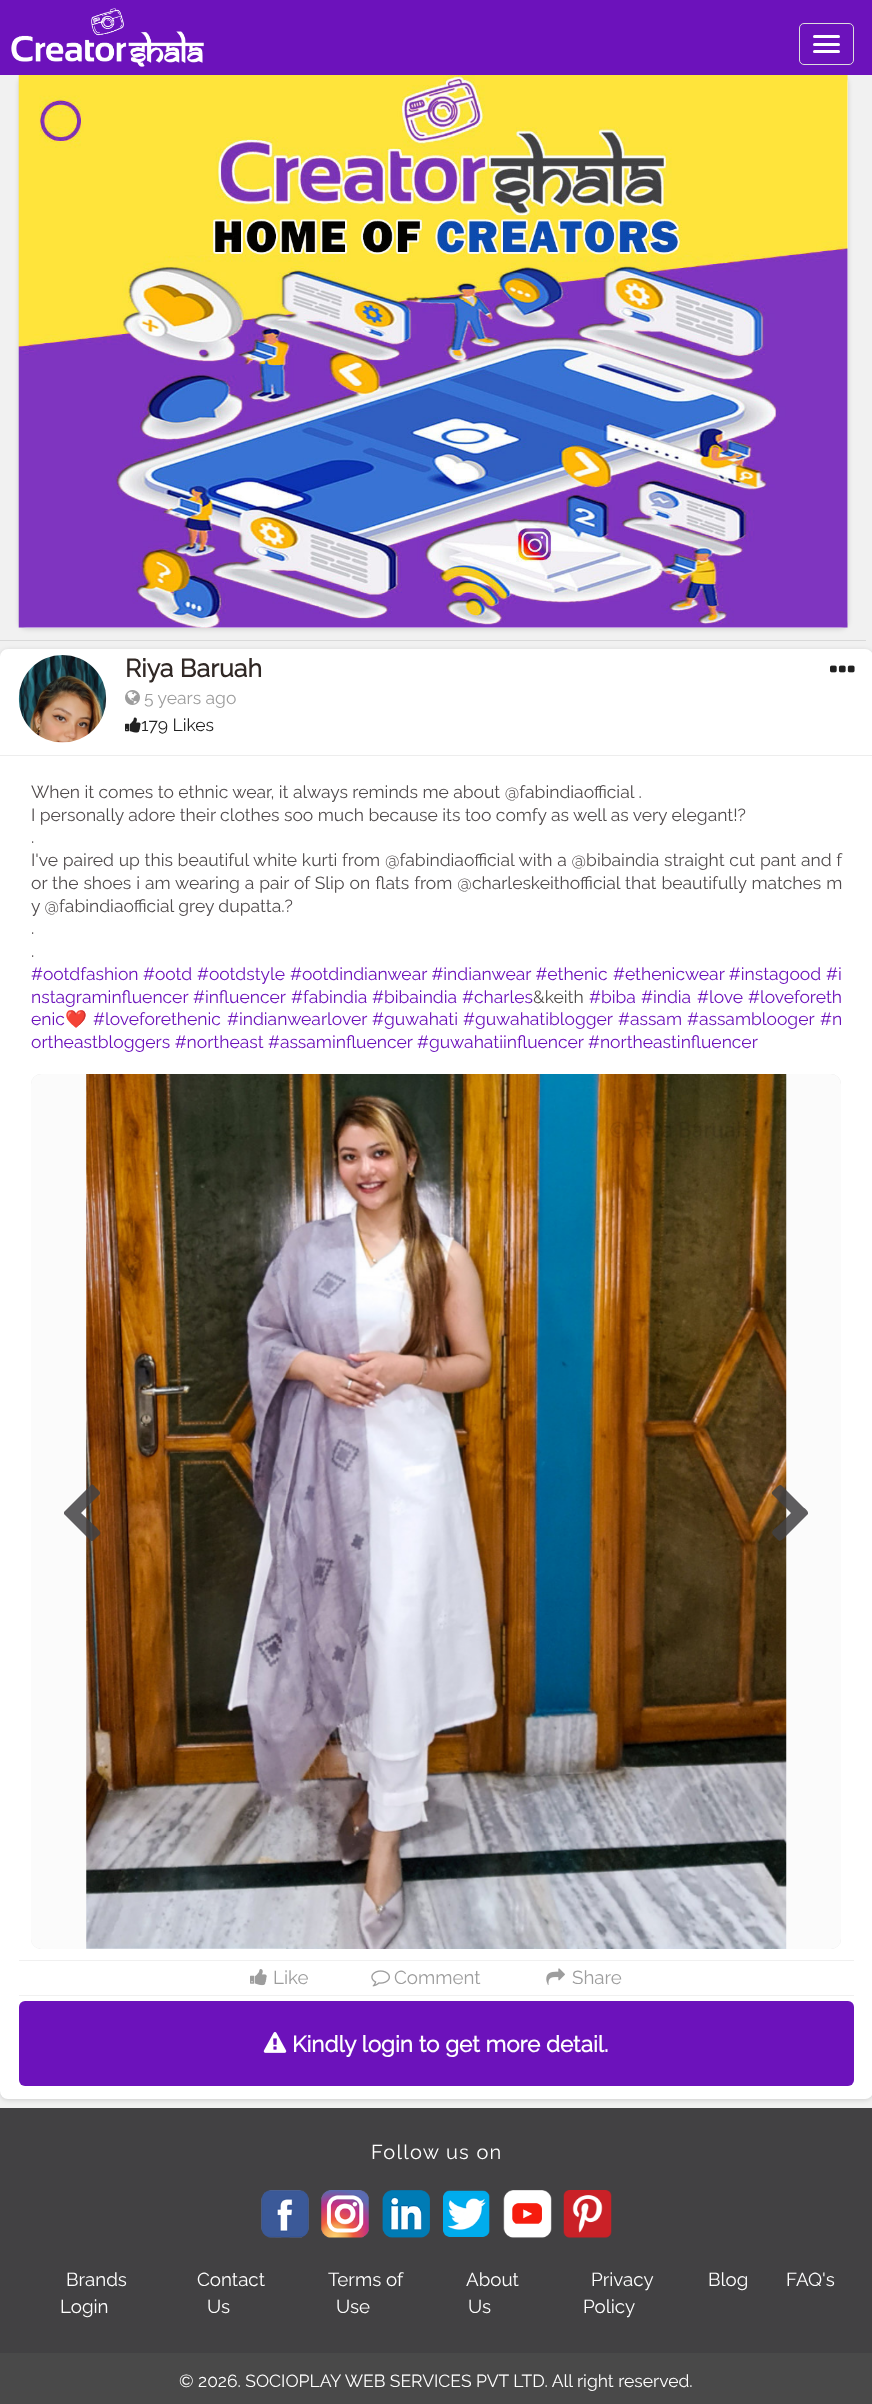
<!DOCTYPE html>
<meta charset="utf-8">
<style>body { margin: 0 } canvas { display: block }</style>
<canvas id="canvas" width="872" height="2404"></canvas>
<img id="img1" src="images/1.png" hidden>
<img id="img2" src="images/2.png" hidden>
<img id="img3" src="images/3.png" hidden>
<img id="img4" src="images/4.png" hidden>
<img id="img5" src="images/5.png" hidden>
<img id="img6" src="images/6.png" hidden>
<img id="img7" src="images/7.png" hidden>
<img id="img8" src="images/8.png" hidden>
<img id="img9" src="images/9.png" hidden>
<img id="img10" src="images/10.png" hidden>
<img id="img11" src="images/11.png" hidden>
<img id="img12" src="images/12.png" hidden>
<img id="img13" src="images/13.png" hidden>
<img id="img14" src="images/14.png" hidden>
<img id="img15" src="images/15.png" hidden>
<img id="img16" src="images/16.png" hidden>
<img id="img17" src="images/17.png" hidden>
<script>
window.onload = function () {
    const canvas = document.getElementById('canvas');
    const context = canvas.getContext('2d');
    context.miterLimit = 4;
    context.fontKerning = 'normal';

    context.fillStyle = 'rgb(241, 241, 241)';
    context.fillRect(0, 0, 872, 2404);
    context.fillStyle = 'rgba(0, 0, 0, 0.14)';
    context.filter = 'blur(2.5px)';
    context.beginPath();
    context.roundRect(19, 76, 829, 553, 8);
    context.fill();
    context.filter = 'none';
    context.fillStyle = 'rgb(108, 18, 187)';
    context.fillRect(0, 0, 872, 75);
    context.drawImage(document.getElementById('img1'), 11, 8, 193, 59);
    context.beginPath();
    context.roundRect(799.5, 23.5, 54, 41, 4.5);
    context.strokeStyle = 'rgb(221, 221, 221)';
    context.stroke();
    context.fillStyle = 'rgb(255, 255, 255)';
    context.beginPath();
    context.roundRect(813, 35, 27, 3, 1.5);
    context.fill();
    context.beginPath();
    context.roundRect(813, 43, 27, 3, 1.5);
    context.fill();
    context.beginPath();
    context.roundRect(813, 50, 27, 3, 1.5);
    context.fill();
    context.fillStyle = 'rgb(217, 217, 217)';
    context.fillRect(0, 640, 866, 1);
    context.fillStyle = 'rgb(255, 255, 255)';
    context.beginPath();
    context.roundRect(19, 75, 829, 553, 8);
    context.fill();
    context.drawImage(document.getElementById('img2'), 18, 75, 830, 553);
    context.fillStyle = 'rgba(0, 0, 0, 0.14)';
    context.filter = 'blur(2.5px)';
    context.beginPath();
    context.roundRect(0, 650, 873, 1450, 8);
    context.fill();
    context.filter = 'none';
    context.fillStyle = 'rgb(255, 255, 255)';
    context.beginPath();
    context.roundRect(0, 649, 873, 1450, 8);
    context.fill();
    context.fillStyle = 'rgb(237, 237, 237)';
    context.fillRect(0, 755, 872, 1);
    context.drawImage(document.getElementById('img3'), 18, 655, 89, 88);
    context.drawImage(document.getElementById('img4'), 125, 690, 15, 15);
    context.drawImage(document.getElementById('img5'), 125, 717, 16, 16);
    context.drawImage(document.getElementById('img6'), 830, 665, 25, 8);
    context.save();
    context.beginPath();
    context.roundRect(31, 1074, 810, 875, 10);
    context.clip();
    context.fillStyle = 'rgb(157, 157, 157)';
    context.filter = 'blur(4.5px)';
    context.beginPath();
    context.roundRect(33, 1075, 807, 873, 9);
    context.fill();
    context.filter = 'none';
    context.restore();
    context.fillStyle = 'rgb(251, 251, 251)';
    context.beginPath();
    context.roundRect(31, 1074, 810, 875, 10);
    context.fill();
    context.drawImage(document.getElementById('img7'), 86, 1074, 701, 875);
    context.fillStyle = 'rgba(66, 65, 67, 0.85)';
    context.beginPath();
    context.moveTo(100, 1494);
    context.lineTo(81, 1513);
    context.lineTo(97, 1528);
    context.bezierCurveTo(101, 1533, 102, 1533, 97, 1537);
    context.bezierCurveTo(91, 1543, 93, 1542, 86, 1536);
    context.lineTo(64, 1514);
    context.lineTo(64, 1512);
    context.lineTo(91, 1485);
    context.bezierCurveTo(93, 1483, 95, 1487, 96, 1488);
    context.lineTo(100, 1492);
    context.bezierCurveTo(100, 1493, 100, 1494, 100, 1494);
    context.closePath();
    context.fill();
    context.beginPath();
    context.moveTo(807, 1515);
    context.lineTo(786, 1536);
    context.bezierCurveTo(779, 1543, 780, 1542, 774, 1536);
    context.bezierCurveTo(769, 1531, 775, 1529, 779, 1525);
    context.lineTo(791, 1513);
    context.lineTo(772, 1494);
    context.bezierCurveTo(771, 1492, 774, 1490, 775, 1489);
    context.bezierCurveTo(781, 1483, 780, 1484, 786, 1490);
    context.lineTo(803, 1507);
    context.bezierCurveTo(804, 1508, 809, 1511, 808, 1514);
    context.closePath();
    context.fill();
    context.fillStyle = 'rgb(240, 240, 240)';
    context.fillRect(19, 1960, 835, 1);
    context.fillRect(19, 1995, 835, 1);
    context.drawImage(document.getElementById('img8'), 250, 1969, 17, 17);
    context.drawImage(document.getElementById('img9'), 371, 1970, 19, 17);
    context.drawImage(document.getElementById('img10'), 546, 1968, 19, 17);
    context.fillStyle = 'rgb(108, 18, 187)';
    context.beginPath();
    context.roundRect(19, 2001, 835, 85, 6);
    context.fill();
    context.drawImage(document.getElementById('img11'), 263, 2032, 24, 21);
    context.fillStyle = 'rgb(66, 65, 67)';
    context.fillRect(0, 2108, 872, 245);
    context.fillStyle = 'rgb(73, 73, 73)';
    context.fillRect(0, 2353, 872, 51);
    context.drawImage(document.getElementById('img12'), 261, 2190, 48, 48);
    context.drawImage(document.getElementById('img13'), 321, 2190, 48, 48);
    context.drawImage(document.getElementById('img14'), 382, 2190, 48, 48);
    context.drawImage(document.getElementById('img15'), 443, 2190, 47, 47);
    context.drawImage(document.getElementById('img16'), 503, 2190, 49, 48);
    context.drawImage(document.getElementById('img17'), 563, 2190, 49, 48);
    context.font = 'bold 25px Raleway';
    context.fillStyle = 'rgb(48, 40, 37)';
    context.fillText('Riya Baruah', 125, 677);
    context.font = '100 17.5px Raleway';
    context.fillStyle = 'rgb(157, 157, 157)';
    context.fillText('5 years ago', 144, 704);
    context.fillStyle = 'rgb(33, 33, 33)';
    context.fillText('179 Likes', 141, 731);
    context.fillStyle = 'rgb(81, 76, 77)';
    context.fillText('When it comes to ethnic wear, it always reminds me about @fabindiaofficial .', 31, 798);
    context.fillText('I personally adore their clothes soo much because its too comfy as well as very elegant!?', 31, 821);
    context.fillText('.', 31, 843);
    context.wordSpacing = '0.25px';
    context.fillText('I\'ve paired up this beautiful white kurti from @fabindiaofficial with a @bibaindia straight cut pant and f', 31, 866);
    context.wordSpacing = '0.5px';
    context.fillText('or the shoes i am wearing a pair of Slip on flats from @charleskeithofficial that beautifully matches m', 31, 889);
    context.wordSpacing = '0px';
    context.fillText('y @fabindiaofficial grey dupatta.?', 31, 912);
    context.fillText('.', 31, 934);
    context.fillText('.', 31, 957);
    context.fillStyle = 'rgb(108, 18, 187)';
    context.fillText('#ootdfashion', 31, 980);
    context.fillText('#ootd', 143, 980);
    context.fillText('#ootdstyle', 197, 980);
    context.fillText('#ootdindianwear #indianwear #ethenic', 290, 980);
    context.fillText('#ethenicwear #instagood', 613, 980);
    context.fillText('#i', 826, 980);
    context.fillText('nstagraminfluencer', 31, 1003);
    context.fillText('#influencer', 193, 1003);
    context.fillText('#fabindia', 291, 1003);
    context.fillText('#bibaindia', 372, 1003);
    context.fillText('#charles', 462, 1003);
    context.fillStyle = 'rgb(81, 76, 77)';
    context.fillText('&keith', 533, 1003);
    context.fillStyle = 'rgb(108, 18, 187)';
    context.fillText('#biba', 589, 1003);
    context.fillText('#india', 641, 1003);
    context.fillText('#love', 697, 1003);
    context.fillText('#loveforeth', 748, 1003);
    context.fillText('enic', 31, 1025);
    context.font = '17.5px Noto Color Emoji';
    context.fillStyle = 'rgb(81, 76, 77)';
    context.fillText('❤️', 65, 1025);
    context.font = '100 17.5px Raleway';
    context.fillStyle = 'rgb(108, 18, 187)';
    context.fillText('#loveforethenic', 93, 1025);
    context.fillText('#indianwearlover', 227, 1025);
    context.fillText('#guwahati', 372, 1025);
    context.fillText('#guwahatiblogger', 463, 1025);
    context.fillText('#assam', 618, 1025);
    context.fillText('#assamblooger', 687, 1025);
    context.fillText('#n', 820, 1025);
    context.fillText('ortheastbloggers #northeast #assaminfluencer', 31, 1048);
    context.fillText('#guwahatiinfluencer', 417, 1048);
    context.fillText('#northeastinfluencer', 588, 1048);
    context.font = '100 18.75px Raleway';
    context.fillStyle = 'rgb(157, 157, 157)';
    context.fillText('Like', 273, 1984);
    context.fillText('Comment', 394, 1984);
    context.fillText('Share', 572, 1984);
    context.font = 'bold 22.5px Raleway';
    context.fillStyle = 'rgb(255, 255, 255)';
    context.fillText('Kindly login to get more detail.', 292, 2052);
    context.letterSpacing = '1.25px';
    context.font = '100 20px Raleway';
    context.fillText('Follow us on', 371, 2159);
    context.letterSpacing = '0px';
    context.font = '100 18.75px Raleway';
    context.fillText('Brands', 66, 2286);
    context.fillText('Login', 60, 2313);
    context.fillText('Contact', 197, 2286);
    context.fillText('Us', 207, 2313);
    context.fillText('Terms of', 328, 2286);
    context.fillText('Use', 336, 2313);
    context.fillText('About', 466, 2286);
    context.fillText('Us', 468, 2313);
    context.fillText('Privacy', 591, 2286);
    context.fillText('Policy', 583, 2313);
    context.fillText('Blog', 708, 2286);
    context.fillText('FAQ\'s', 786, 2286);
    context.font = '100 17.5px Raleway';
    context.fillText('© 2026. SOCIOPLAY WEB SERVICES PVT LTD. All right reserved.', 179, 2387);
};
</script>
